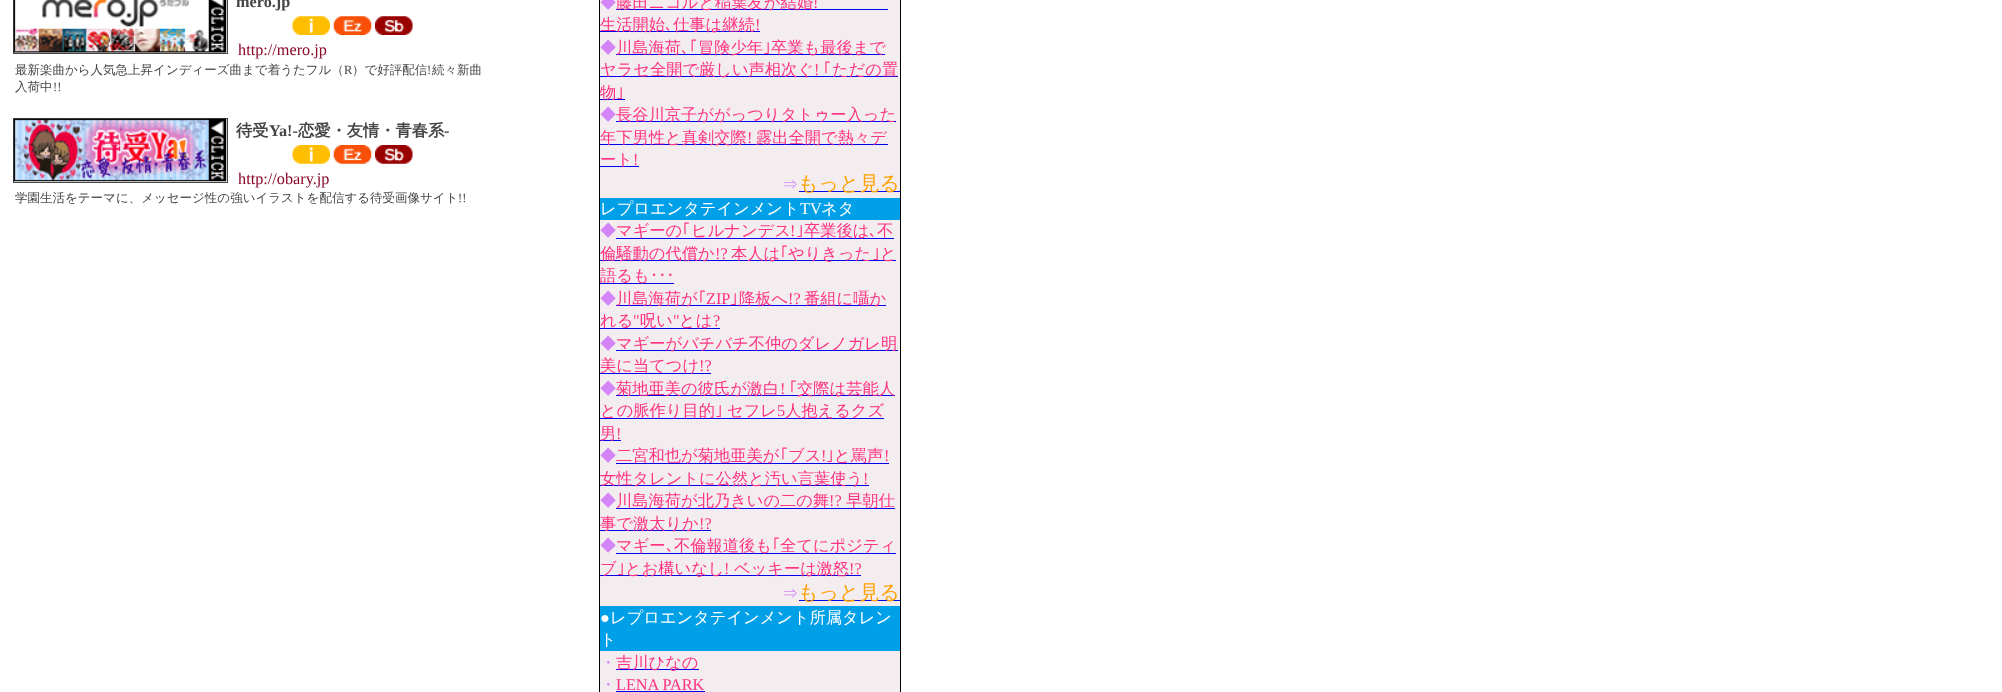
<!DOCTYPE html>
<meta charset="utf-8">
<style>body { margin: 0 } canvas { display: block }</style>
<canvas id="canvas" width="2002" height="692"></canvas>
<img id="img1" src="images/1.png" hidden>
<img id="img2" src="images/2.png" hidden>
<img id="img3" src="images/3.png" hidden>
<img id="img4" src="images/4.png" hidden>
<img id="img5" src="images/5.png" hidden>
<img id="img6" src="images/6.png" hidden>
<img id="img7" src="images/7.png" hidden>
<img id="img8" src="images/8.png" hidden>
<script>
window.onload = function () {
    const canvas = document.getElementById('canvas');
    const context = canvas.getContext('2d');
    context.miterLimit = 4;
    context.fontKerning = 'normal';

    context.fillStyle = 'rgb(255, 255, 255)';
    context.fillRect(0, 0, 2002, 692);
    context.strokeStyle = 'rgb(70, 70, 70)';
    context.strokeRect(13.5, -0.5, 214, 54);
    context.drawImage(document.getElementById('img1'), 13, 0, 214, 53);
    context.drawImage(document.getElementById('img2'), 292, 16, 38, 19);
    context.drawImage(document.getElementById('img3'), 333, 16, 39, 19);
    context.drawImage(document.getElementById('img4'), 375, 16, 38, 19);
    context.strokeRect(13.5, 118.5, 214, 64);
    context.drawImage(document.getElementById('img5'), 13, 118, 214, 64);
    context.drawImage(document.getElementById('img6'), 292, 145, 38, 19);
    context.drawImage(document.getElementById('img7'), 333, 145, 39, 19);
    context.drawImage(document.getElementById('img8'), 375, 145, 38, 19);
    context.fillStyle = 'rgb(243, 237, 239)';
    context.beginPath();
    context.rect(599.5, -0.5, 301, 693);
    context.fill();
    context.strokeStyle = 'rgb(0, 0, 0)';
    context.stroke();
    context.fillStyle = 'rgb(0, 0, 238)';
    context.fillRect(616, 9, 272, 1);
    context.fillRect(600, 31, 160, 1);
    context.fillRect(616, 54, 269, 1);
    context.fillRect(600, 76, 298, 1);
    context.fillRect(600, 99, 25, 1);
    context.fillRect(616, 121, 280, 1);
    context.fillRect(600, 144, 288, 1);
    context.fillRect(600, 166, 39, 1);
    context.fillRect(799, 191, 101, 1);
    context.fillStyle = 'rgb(0, 160, 233)';
    context.fillRect(600, 198, 300, 22);
    context.fillStyle = 'rgb(0, 0, 238)';
    context.fillRect(616, 238, 278, 1);
    context.fillRect(600, 260, 296, 1);
    context.fillRect(600, 283, 74, 1);
    context.fillRect(616, 305, 270, 1);
    context.fillRect(600, 328, 120, 1);
    context.fillRect(616, 350, 282, 1);
    context.fillRect(600, 373, 111, 1);
    context.fillRect(616, 395, 279, 1);
    context.fillRect(600, 418, 284, 1);
    context.fillRect(600, 440, 21, 1);
    context.fillRect(616, 463, 273, 1);
    context.fillRect(600, 485, 269, 1);
    context.fillRect(616, 508, 279, 1);
    context.fillRect(600, 530, 111, 1);
    context.fillRect(616, 553, 280, 1);
    context.fillRect(600, 575, 261, 1);
    context.fillRect(799, 600, 101, 1);
    context.fillStyle = 'rgb(0, 160, 233)';
    context.fillRect(600, 606, 300, 45);
    context.fillStyle = 'rgb(0, 0, 238)';
    context.fillRect(616, 669, 83, 1);
    context.fillRect(616, 691, 89, 1);
    context.font = 'bold 16.25px Liberation Serif';
    context.fillStyle = 'rgb(70, 70, 70)';
    context.fillText('mero.jp', 236, 7);
    context.font = '16.25px Liberation Serif';
    context.fillStyle = 'rgb(139, 7, 38)';
    context.fillText('http://mero.jp', 238, 55);
    context.font = '500 12.5px WenQuanYi Zen Hei';
    context.fillStyle = 'rgb(70, 70, 70)';
    context.fillText('最新楽曲から人気急上昇インディーズ曲まで着うたフル（', 15, 74);
    context.font = '12.5px Liberation Serif';
    context.fillText('R', 344, 74);
    context.font = '500 12.5px WenQuanYi Zen Hei';
    context.fillText('）で好評配信', 352, 74);
    context.font = '12.5px Liberation Serif';
    context.fillText('!', 427, 74);
    context.font = '500 12.5px WenQuanYi Zen Hei';
    context.fillText('続々新曲', 432, 74);
    context.fillText('入荷中', 15, 91);
    context.font = '12.5px Liberation Serif';
    context.fillText('!!', 53, 91);
    context.font = 'bold 16.25px WenQuanYi Zen Hei';
    context.fillText('待受', 236, 136);
    context.font = 'bold 16.25px Liberation Serif';
    context.fillText('Ya!-', 269, 136);
    context.font = 'bold 16.25px WenQuanYi Zen Hei';
    context.fillText('恋愛・友情・青春系', 298, 136);
    context.font = 'bold 16.25px Liberation Serif';
    context.fillText('-', 444, 136);
    context.font = '16.25px Liberation Serif';
    context.fillStyle = 'rgb(139, 7, 38)';
    context.fillText('http://obary.jp', 238, 184);
    context.font = '500 12.5px WenQuanYi Zen Hei';
    context.fillStyle = 'rgb(70, 70, 70)';
    context.fillText('学園生活をテーマに、メッセージ性の強いイラストを配信する待受画像サイト', 15, 202);
    context.font = '12.5px Liberation Serif';
    context.fillText('!!', 458, 202);
    context.font = '500 16.25px WenQuanYi Zen Hei';
    context.fillStyle = 'rgb(211, 132, 247)';
    context.fillText('◆', 600, 8);
    context.fillStyle = 'rgb(255, 51, 129)';
    context.fillText('藤田ニコルと稲葉友が結婚', 616, 8);
    context.font = '16.25px Liberation Serif';
    context.fillText('!', 813, 8);
    context.font = '500 16.25px WenQuanYi Zen Hei';
    context.fillText('生活開始', 600, 30);
    context.font = '16.25px IPAPGothic';
    context.fillText('､', 665, 30);
    context.font = '500 16.25px WenQuanYi Zen Hei';
    context.fillText('仕事は継続', 673, 30);
    context.font = '16.25px Liberation Serif';
    context.fillText('!', 755, 30);
    context.font = '500 16.25px WenQuanYi Zen Hei';
    context.fillStyle = 'rgb(211, 132, 247)';
    context.fillText('◆', 600, 53);
    context.fillStyle = 'rgb(255, 51, 129)';
    context.fillText('川島海荷', 616, 53);
    context.font = '16.25px IPAPGothic';
    context.fillText('､｢', 681, 53);
    context.font = '500 16.25px WenQuanYi Zen Hei';
    context.fillText('冒険少年', 698, 53);
    context.font = '16.25px IPAPGothic';
    context.fillText('｣', 763, 53);
    context.font = '500 16.25px WenQuanYi Zen Hei';
    context.fillText('卒業も最後まで', 771, 53);
    context.fillText('ヤラセ全開で厳しい声相次ぐ', 600, 75);
    context.font = '16.25px Liberation Serif';
    context.fillText('!', 814, 75);
    context.font = '16.25px IPAPGothic';
    context.fillText('｢', 823, 75);
    context.font = '500 16.25px WenQuanYi Zen Hei';
    context.fillText('ただの置', 832, 75);
    context.fillText('物', 600, 98);
    context.font = '16.25px IPAPGothic';
    context.fillText('｣', 616, 98);
    context.font = '500 16.25px WenQuanYi Zen Hei';
    context.fillStyle = 'rgb(211, 132, 247)';
    context.fillText('◆', 600, 120);
    context.fillStyle = 'rgb(255, 51, 129)';
    context.fillText('長谷川京子ががっつりタトゥー入った', 616, 120);
    context.fillText('年下男性と真剣交際', 600, 143);
    context.font = '16.25px Liberation Serif';
    context.fillText('!', 747, 143);
    context.font = '500 16.25px WenQuanYi Zen Hei';
    context.fillText('露出全開で熱々デ', 756, 143);
    context.fillText('ート', 600, 165);
    context.font = '16.25px Liberation Serif';
    context.fillText('!', 633, 165);
    context.font = '500 16.25px WenQuanYi Zen Hei';
    context.fillStyle = 'rgb(211, 132, 247)';
    context.fillText('⇒', 782, 190);
    context.font = '500 20px WenQuanYi Zen Hei';
    context.fillStyle = 'rgb(255, 161, 0)';
    context.fillText('もっと見る', 798, 190);
    context.font = '500 16.25px WenQuanYi Zen Hei';
    context.fillStyle = 'rgb(255, 255, 255)';
    context.fillText('レプロエンタテインメント', 600, 214);
    context.font = '16.25px Liberation Serif';
    context.fillText('TV', 800, 214);
    context.font = '500 16.25px WenQuanYi Zen Hei';
    context.fillText('ネタ', 821, 214);
    context.fillStyle = 'rgb(211, 132, 247)';
    context.fillText('◆', 600, 236);
    context.fillStyle = 'rgb(255, 51, 129)';
    context.fillText('マギーの', 616, 236);
    context.font = '16.25px IPAPGothic';
    context.fillText('｢', 682, 236);
    context.font = '500 16.25px WenQuanYi Zen Hei';
    context.fillText('ヒルナンデス', 691, 236);
    context.font = '16.25px Liberation Serif';
    context.fillText('!', 790, 236);
    context.font = '16.25px IPAPGothic';
    context.fillText('｣', 796, 236);
    context.font = '500 16.25px WenQuanYi Zen Hei';
    context.fillText('卒業後は', 804, 236);
    context.font = '16.25px IPAPGothic';
    context.fillText('､', 869, 236);
    context.font = '500 16.25px WenQuanYi Zen Hei';
    context.fillText('不', 877, 236);
    context.fillText('倫騒動の代償か', 600, 259);
    context.font = '16.25px Liberation Serif';
    context.fillText('!?', 715, 259);
    context.font = '500 16.25px WenQuanYi Zen Hei';
    context.fillText('本人は', 731, 259);
    context.font = '16.25px IPAPGothic';
    context.fillText('｢', 780, 259);
    context.font = '500 16.25px WenQuanYi Zen Hei';
    context.fillText('やりきった', 788, 259);
    context.font = '16.25px IPAPGothic';
    context.fillText('｣', 872, 259);
    context.font = '500 16.25px WenQuanYi Zen Hei';
    context.fillText('と', 880, 259);
    context.fillText('語るも', 600, 281);
    context.font = '16.25px IPAPGothic';
    context.fillText('･･･', 650, 281);
    context.font = '500 16.25px WenQuanYi Zen Hei';
    context.fillStyle = 'rgb(211, 132, 247)';
    context.fillText('◆', 600, 304);
    context.fillStyle = 'rgb(255, 51, 129)';
    context.fillText('川島海荷が', 616, 304);
    context.font = '16.25px IPAPGothic';
    context.fillText('｢', 698, 304);
    context.font = '16.25px Liberation Serif';
    context.fillText('ZIP', 706, 304);
    context.font = '16.25px IPAPGothic';
    context.fillText('｣', 730, 304);
    context.font = '500 16.25px WenQuanYi Zen Hei';
    context.fillText('降板へ', 739, 304);
    context.font = '16.25px Liberation Serif';
    context.fillText('!?', 788, 304);
    context.font = '500 16.25px WenQuanYi Zen Hei';
    context.fillText('番組に囁か', 804, 304);
    context.fillText('れる', 600, 326);
    context.font = '16.25px Liberation Serif';
    context.fillText('"', 633, 326);
    context.font = '500 16.25px WenQuanYi Zen Hei';
    context.fillText('呪い', 640, 326);
    context.font = '16.25px Liberation Serif';
    context.fillText('"', 673, 326);
    context.font = '500 16.25px WenQuanYi Zen Hei';
    context.fillText('とは', 679, 326);
    context.font = '16.25px Liberation Serif';
    context.fillText('?', 713, 326);
    context.font = '500 16.25px WenQuanYi Zen Hei';
    context.fillStyle = 'rgb(211, 132, 247)';
    context.fillText('◆', 600, 349);
    context.fillStyle = 'rgb(255, 51, 129)';
    context.fillText('マギーがバチバチ不仲のダレノガレ明', 616, 349);
    context.fillText('美に当てつけ', 600, 371);
    context.font = '16.25px Liberation Serif';
    context.fillText('!?', 699, 371);
    context.font = '500 16.25px WenQuanYi Zen Hei';
    context.fillStyle = 'rgb(211, 132, 247)';
    context.fillText('◆', 600, 394);
    context.fillStyle = 'rgb(255, 51, 129)';
    context.fillText('菊地亜美の彼氏が激白', 616, 394);
    context.font = '16.25px Liberation Serif';
    context.fillText('!', 780, 394);
    context.font = '16.25px IPAPGothic';
    context.fillText('｢', 789, 394);
    context.font = '500 16.25px WenQuanYi Zen Hei';
    context.fillText('交際は芸能人', 797, 394);
    context.fillText('との脈作り目的', 600, 416);
    context.font = '16.25px IPAPGothic';
    context.fillText('｣', 715, 416);
    context.font = '500 16.25px WenQuanYi Zen Hei';
    context.fillText('セフレ', 727, 416);
    context.font = '16.25px Liberation Serif';
    context.fillText('5', 777, 416);
    context.font = '500 16.25px WenQuanYi Zen Hei';
    context.fillText('人抱えるクズ', 785, 416);
    context.fillText('男', 600, 439);
    context.font = '16.25px Liberation Serif';
    context.fillText('!', 616, 439);
    context.font = '500 16.25px WenQuanYi Zen Hei';
    context.fillStyle = 'rgb(211, 132, 247)';
    context.fillText('◆', 600, 461);
    context.fillStyle = 'rgb(255, 51, 129)';
    context.fillText('二宮和也が菊地亜美が', 616, 461);
    context.font = '16.25px IPAPGothic';
    context.fillText('｢', 780, 461);
    context.font = '500 16.25px WenQuanYi Zen Hei';
    context.fillText('ブス', 788, 461);
    context.font = '16.25px Liberation Serif';
    context.fillText('!', 821, 461);
    context.font = '16.25px IPAPGothic';
    context.fillText('｣', 826, 461);
    context.font = '500 16.25px WenQuanYi Zen Hei';
    context.fillText('と罵声', 834, 461);
    context.font = '16.25px Liberation Serif';
    context.fillText('!', 884, 461);
    context.font = '500 16.25px WenQuanYi Zen Hei';
    context.fillText('女性タレントに公然と汚い言葉使う', 600, 484);
    context.font = '16.25px Liberation Serif';
    context.fillText('!', 863, 484);
    context.font = '500 16.25px WenQuanYi Zen Hei';
    context.fillStyle = 'rgb(211, 132, 247)';
    context.fillText('◆', 600, 506);
    context.fillStyle = 'rgb(255, 51, 129)';
    context.fillText('川島海荷が北乃きいの二の舞', 616, 506);
    context.font = '16.25px Liberation Serif';
    context.fillText('!?', 829, 506);
    context.font = '500 16.25px WenQuanYi Zen Hei';
    context.fillText('早朝仕', 846, 506);
    context.fillText('事で激太りか', 600, 529);
    context.font = '16.25px Liberation Serif';
    context.fillText('!?', 699, 529);
    context.font = '500 16.25px WenQuanYi Zen Hei';
    context.fillStyle = 'rgb(211, 132, 247)';
    context.fillText('◆', 600, 551);
    context.fillStyle = 'rgb(255, 51, 129)';
    context.fillText('マギー', 616, 551);
    context.font = '16.25px IPAPGothic';
    context.fillText('､', 666, 551);
    context.font = '500 16.25px WenQuanYi Zen Hei';
    context.fillText('不倫報道後も', 674, 551);
    context.font = '16.25px IPAPGothic';
    context.fillText('｢', 772, 551);
    context.font = '500 16.25px WenQuanYi Zen Hei';
    context.fillText('全てにポジティ', 780, 551);
    context.fillText('ブ', 600, 574);
    context.font = '16.25px IPAPGothic';
    context.fillText('｣', 617, 574);
    context.font = '500 16.25px WenQuanYi Zen Hei';
    context.fillText('とお構いなし', 625, 574);
    context.font = '16.25px Liberation Serif';
    context.fillText('!', 724, 574);
    context.font = '500 16.25px WenQuanYi Zen Hei';
    context.fillText('ベッキーは激怒', 734, 574);
    context.font = '16.25px Liberation Serif';
    context.fillText('!?', 849, 574);
    context.font = '500 16.25px WenQuanYi Zen Hei';
    context.fillStyle = 'rgb(211, 132, 247)';
    context.fillText('⇒', 782, 599);
    context.font = '500 20px WenQuanYi Zen Hei';
    context.fillStyle = 'rgb(255, 161, 0)';
    context.fillText('もっと見る', 798, 599);
    context.font = '16.25px Liberation Serif';
    context.fillStyle = 'rgb(255, 255, 255)';
    context.fillText('●', 600, 623);
    context.font = '500 16.25px WenQuanYi Zen Hei';
    context.fillText('レプロエンタテインメント所属タレン', 610, 623);
    context.fillText('ト', 600, 645);
    context.fillStyle = 'rgb(211, 132, 247)';
    context.fillText('・', 600, 668);
    context.fillStyle = 'rgb(255, 51, 129)';
    context.fillText('吉川ひなの', 616, 668);
    context.fillStyle = 'rgb(211, 132, 247)';
    context.fillText('・', 600, 690);
    context.font = '16.25px Liberation Serif';
    context.fillStyle = 'rgb(255, 51, 129)';
    context.fillText('LENA PARK', 616, 690);
};
</script>
